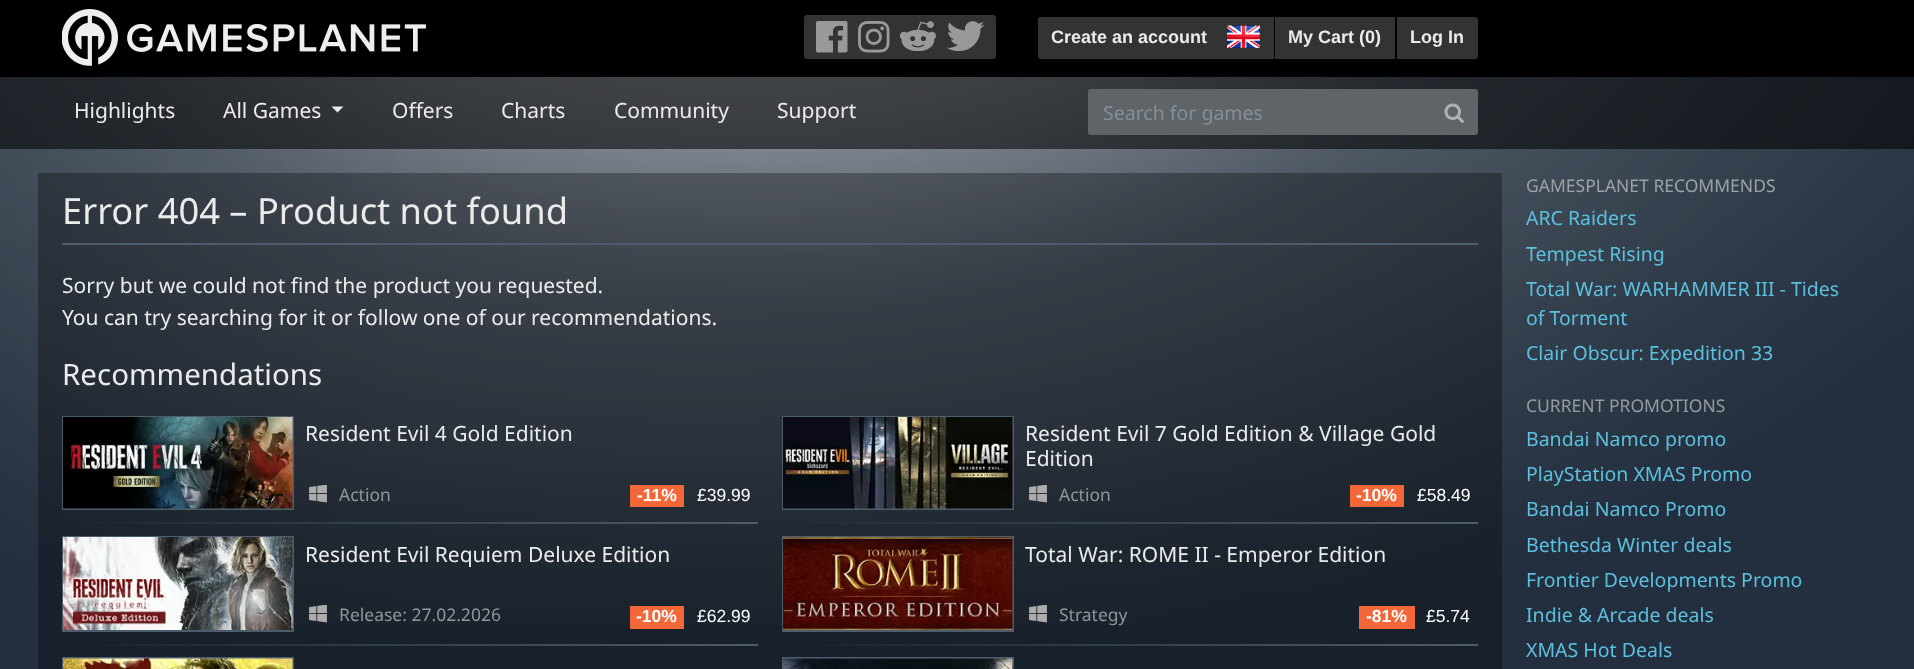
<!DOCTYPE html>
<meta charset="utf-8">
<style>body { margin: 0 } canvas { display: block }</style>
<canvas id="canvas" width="1914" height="669"></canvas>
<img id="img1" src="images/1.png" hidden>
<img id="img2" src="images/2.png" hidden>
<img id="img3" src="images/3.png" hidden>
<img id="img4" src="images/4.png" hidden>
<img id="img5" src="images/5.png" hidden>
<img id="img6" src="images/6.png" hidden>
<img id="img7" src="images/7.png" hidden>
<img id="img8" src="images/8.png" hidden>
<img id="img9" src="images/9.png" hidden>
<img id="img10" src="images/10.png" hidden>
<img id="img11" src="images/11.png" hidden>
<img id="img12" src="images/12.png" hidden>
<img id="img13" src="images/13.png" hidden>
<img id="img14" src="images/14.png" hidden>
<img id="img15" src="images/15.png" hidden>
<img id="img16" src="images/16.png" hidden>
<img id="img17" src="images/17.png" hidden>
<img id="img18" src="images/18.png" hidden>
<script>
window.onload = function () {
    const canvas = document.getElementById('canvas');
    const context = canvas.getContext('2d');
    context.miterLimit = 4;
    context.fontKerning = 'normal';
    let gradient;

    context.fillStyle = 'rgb(35, 47, 62)';
    context.fillRect(0, 0, 1914, 669);
    context.drawImage(document.getElementById('img1'), 0, 77, 1914, 548);
    context.fillStyle = 'rgb(0, 0, 0)';
    context.fillRect(0, 0, 1914, 77);
    context.drawImage(document.getElementById('img2'), 62, 9, 364, 57);
    context.fillStyle = 'rgb(51, 51, 51)';
    context.beginPath();
    context.roundRect(804, 15, 50, 44, [3, 0, 0, 3]);
    context.fill();
    context.drawImage(document.getElementById('img3'), 816, 21, 32, 32);
    context.fillRect(854, 15, 87, 44);
    context.drawImage(document.getElementById('img4'), 858, 21, 32, 32);
    context.beginPath();
    context.roundRect(941, 15, 55, 44, [0, 3, 3, 0]);
    context.fill();
    context.drawImage(document.getElementById('img5'), 946, 21, 38, 30);
    context.drawImage(document.getElementById('img6'), 900, 21, 36, 30);
    context.beginPath();
    context.roundRect(1038, 17, 183, 42, [3, 0, 0, 3]);
    context.fill();
    context.fillRect(1221, 17, 53, 42);
    context.drawImage(document.getElementById('img7'), 1227, 25, 33, 23);
    context.fillRect(1275, 17, 120, 42);
    context.beginPath();
    context.roundRect(1397, 17, 81, 42, [0, 3, 3, 0]);
    context.fill();
    context.fillStyle = 'rgba(0, 0, 0, 0.55)';
    context.fillRect(0, 77, 1914, 72);
    context.fillStyle = 'rgb(235, 235, 235)';
    context.beginPath();
    context.moveTo(331.5, 106.5);
    context.lineTo(343.5, 106.5);
    context.lineTo(337.5, 112.5);
    context.closePath();
    context.fill();
    context.fillStyle = 'rgb(95, 100, 104)';
    context.beginPath();
    context.roundRect(1089, 90, 343, 44, [2, 0, 0, 2]);
    context.fill();
    context.strokeStyle = 'rgb(95, 100, 104)';
    context.lineWidth = 2;
    context.stroke();
    context.beginPath();
    context.roundRect(1432, 90, 45, 44, [0, 2, 2, 0]);
    context.fill();
    context.stroke();
    context.drawImage(document.getElementById('img8'), 1444, 103, 20, 20);
    context.fillStyle = 'rgba(0, 0, 0, 0.3)';
    context.fillRect(38, 173, 1464, 496);
    context.fillStyle = 'rgb(78, 93, 108)';
    context.fillRect(62, 243, 1416, 2);
    context.strokeStyle = 'rgb(78, 93, 108)';
    context.strokeRect(63, 417, 230, 92);
    context.drawImage(document.getElementById('img9'), 63, 417, 230, 92);
    context.drawImage(document.getElementById('img10'), 309, 485, 18, 18);
    context.fillStyle = 'rgb(242, 102, 56)';
    context.fillRect(630, 485, 54, 22);
    gradient = context.createLinearGradient(758, 523, 62, 523);
    gradient.addColorStop(0, 'rgb(78, 93, 108)');
    gradient.addColorStop(1, 'rgba(78, 93, 108, 0)');
    context.fillStyle = gradient;
    context.fillRect(91, 522, 667, 2);
    context.strokeRect(63, 537, 230, 94);
    context.drawImage(document.getElementById('img11'), 63, 537, 230, 93);
    context.drawImage(document.getElementById('img12'), 309, 605, 18, 18);
    context.fillStyle = 'rgb(242, 102, 56)';
    context.fillRect(630, 606, 54, 23);
    gradient = context.createLinearGradient(758, 644, 62, 644);
    gradient.addColorStop(0, 'rgb(78, 93, 108)');
    gradient.addColorStop(1, 'rgb(25, 33, 43)');
    context.fillStyle = gradient;
    context.fillRect(91, 644, 667, 2);
    context.strokeRect(63, 658, 230, 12);
    context.drawImage(document.getElementById('img13'), 63, 658, 230, 11);
    context.strokeRect(783, 417, 230, 92);
    context.drawImage(document.getElementById('img14'), 783, 417, 230, 92);
    context.drawImage(document.getElementById('img15'), 1029, 485, 18, 18);
    context.fillStyle = 'rgb(242, 102, 56)';
    context.fillRect(1350, 485, 54, 22);
    gradient = context.createLinearGradient(1478, 523, 782, 523);
    gradient.addColorStop(0, 'rgb(78, 93, 108)');
    gradient.addColorStop(1, 'rgba(78, 93, 108, 0)');
    context.fillStyle = gradient;
    context.fillRect(811, 522, 667, 2);
    context.strokeRect(783, 537, 230, 94);
    context.drawImage(document.getElementById('img16'), 783, 537, 230, 93);
    context.drawImage(document.getElementById('img17'), 1029, 605, 18, 18);
    context.fillStyle = 'rgb(242, 102, 56)';
    context.fillRect(1359, 606, 56, 23);
    gradient = context.createLinearGradient(1478, 644, 782, 644);
    gradient.addColorStop(0, 'rgb(78, 93, 108)');
    gradient.addColorStop(1, 'rgb(25, 33, 43)');
    context.fillStyle = gradient;
    context.fillRect(811, 644, 667, 2);
    context.strokeRect(783, 658, 230, 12);
    context.drawImage(document.getElementById('img18'), 783, 658, 230, 11);
    context.font = 'bold 18px Liberation Sans';
    context.fillStyle = 'rgb(235, 235, 235)';
    context.fillText('Create an account', 1051, 43);
    context.fillText('My Cart (0)', 1288, 43);
    context.fillText('Log In', 1410, 43);
    context.font = '21px Noto Sans';
    context.fillText('Highlights', 74, 118);
    context.fillText('All Games', 223, 118);
    context.fillText('Offers', 392, 118);
    context.fillText('Charts', 501, 118);
    context.fillText('Community', 614, 118);
    context.fillText('Support', 777, 118);
    context.font = '19.5px Noto Sans';
    context.fillStyle = 'rgb(134, 142, 150)';
    context.fillText('Search for games', 1103, 120);
    context.font = '36.25px Noto Sans';
    context.fillStyle = 'rgb(235, 235, 235)';
    context.fillText('Error 404 – Product not found', 62, 224);
    context.font = '21px Noto Sans';
    context.fillText('Sorry but we could not find the product you requested.', 62, 293);
    context.fillText('You can try searching for it or follow one of our recommendations.', 62, 325);
    context.font = '29.5px Noto Sans';
    context.fillText('Recommendations', 62, 385);
    context.font = '21px Noto Sans';
    context.fillText('Resident Evil 4 Gold Edition', 305, 441);
    context.font = '17.5px Noto Sans';
    context.fillStyle = 'rgb(146, 149, 154)';
    context.fillText('Action', 339, 501);
    context.font = 'bold 17.5px Liberation Sans';
    context.fillStyle = 'rgb(255, 255, 255)';
    context.fillText('-11%', 637, 501);
    context.font = '17.5px Liberation Sans';
    context.fillText('£39.99', 697, 501);
    context.font = '21px Noto Sans';
    context.fillStyle = 'rgb(235, 235, 235)';
    context.fillText('Resident Evil Requiem Deluxe Edition', 305, 562);
    context.font = '17.5px Noto Sans';
    context.fillStyle = 'rgb(146, 149, 154)';
    context.fillText('Release: 27.02.2026', 339, 621);
    context.font = 'bold 17.5px Liberation Sans';
    context.fillStyle = 'rgb(255, 255, 255)';
    context.fillText('-10%', 636, 622);
    context.font = '17.5px Liberation Sans';
    context.fillText('£62.99', 697, 622);
    context.font = '21px Noto Sans';
    context.fillStyle = 'rgb(235, 235, 235)';
    context.fillText('Resident Evil 7 Gold Edition & Village Gold', 1025, 441);
    context.fillText('Edition', 1025, 466);
    context.font = '17.5px Noto Sans';
    context.fillStyle = 'rgb(146, 149, 154)';
    context.fillText('Action', 1059, 501);
    context.font = 'bold 17.5px Liberation Sans';
    context.fillStyle = 'rgb(255, 255, 255)';
    context.fillText('-10%', 1356, 501);
    context.font = '17.5px Liberation Sans';
    context.fillText('£58.49', 1417, 501);
    context.font = '21px Noto Sans';
    context.fillStyle = 'rgb(235, 235, 235)';
    context.fillText('Total War: ROME II - Emperor Edition', 1025, 562);
    context.font = '17.5px Noto Sans';
    context.fillStyle = 'rgb(146, 149, 154)';
    context.fillText('Strategy', 1059, 621);
    context.font = 'bold 17.5px Liberation Sans';
    context.fillStyle = 'rgb(255, 255, 255)';
    context.fillText('-81%', 1366, 622);
    context.font = '17.5px Liberation Sans';
    context.fillText('£5.74', 1426, 622);
    context.font = '17.5px Noto Sans';
    context.fillStyle = 'rgb(156, 162, 168)';
    context.fillText('GAMESPLANET RECOMMENDS', 1526, 192);
    context.font = '19.5px Noto Sans';
    context.fillStyle = 'rgb(91, 192, 222)';
    context.fillText('ARC Raiders', 1526, 225);
    context.fillText('Tempest Rising', 1526, 261);
    context.fillText('Total War: WARHAMMER III - Tides', 1526, 296);
    context.fillText('of Torment', 1526, 325);
    context.fillText('Clair Obscur: Expedition 33', 1526, 360);
    context.font = '17.5px Noto Sans';
    context.fillStyle = 'rgb(149, 155, 162)';
    context.fillText('CURRENT PROMOTIONS', 1526, 412);
    context.font = '19.5px Noto Sans';
    context.fillStyle = 'rgb(91, 192, 222)';
    context.fillText('Bandai Namco promo', 1526, 446);
    context.fillText('PlayStation XMAS Promo', 1526, 481);
    context.fillText('Bandai Namco Promo', 1526, 516);
    context.fillText('Bethesda Winter deals', 1526, 552);
    context.fillText('Frontier Developments Promo', 1526, 587);
    context.fillText('Indie & Arcade deals', 1526, 622);
    context.fillText('XMAS Hot Deals', 1526, 657);
};
</script>
